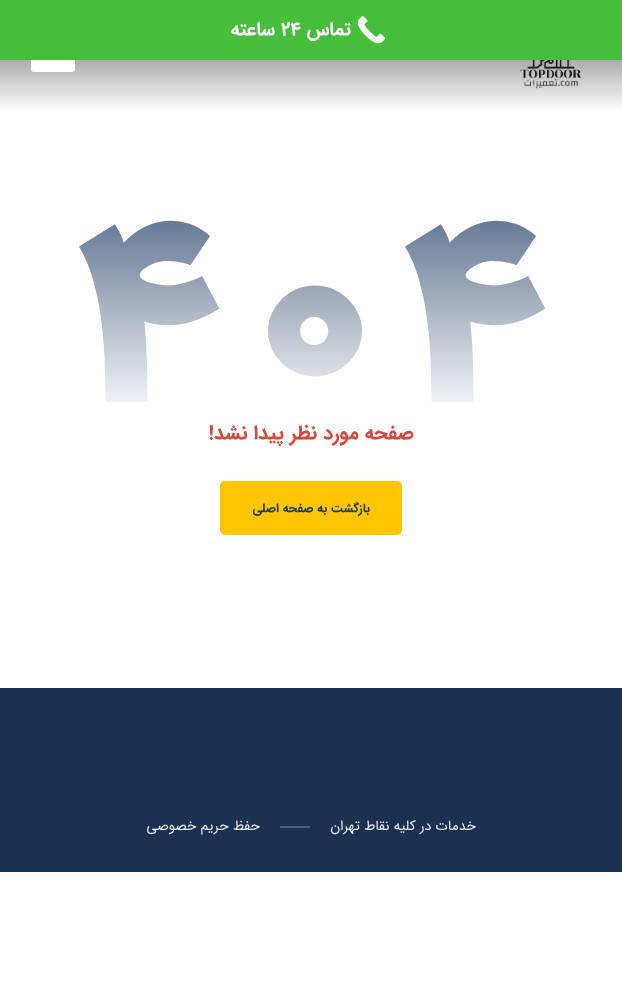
<!DOCTYPE html>
<meta charset="utf-8">
<style>body { margin: 0 } canvas { display: block }</style>
<canvas id="canvas" width="622" height="1004"></canvas>
<img id="img1" src="images/1.png" hidden>
<img id="img2" src="images/2.png" hidden>
<script>
window.onload = function () {
    const canvas = document.getElementById('canvas');
    const context = canvas.getContext('2d');
    context.miterLimit = 4;
    context.fontKerning = 'normal';
    let gradient;

    context.fillStyle = 'rgb(255, 255, 255)';
    context.fillRect(0, 0, 622, 1004);
    gradient = context.createLinearGradient(311, 110, 311, 0);
    gradient.addColorStop(0, 'rgb(252, 252, 252)');
    gradient.addColorStop(1, 'rgb(77, 77, 77)');
    context.fillStyle = gradient;
    context.fillRect(0, 60, 622, 50);
    context.fillStyle = 'rgb(255, 255, 255)';
    context.beginPath();
    context.roundRect(31, 28, 44, 44, 3);
    context.fill();
    context.fillStyle = 'rgb(70, 189, 59)';
    context.fillRect(0, 0, 622, 60);
    context.drawImage(document.getElementById('img1'), 357, 16, 29, 28);
    context.drawImage(document.getElementById('img2'), 520, 60, 62, 29);
    context.fillStyle = 'rgb(255, 198, 0)';
    context.beginPath();
    context.roundRect(220, 481, 182, 54, 5);
    context.fill();
    context.fillStyle = 'rgb(27, 49, 81)';
    context.fillRect(0, 688, 622, 184);
    context.fillStyle = 'rgb(75, 92, 118)';
    context.fillRect(280, 826, 30, 2);
    context.direction = 'rtl';
    context.font = 'bold 19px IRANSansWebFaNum';
    context.fillStyle = 'rgb(255, 255, 255)';
    context.fillText('تماس', 351, 35);
    context.direction = 'ltr';
    context.fillText('۲۴', 281, 35);
    context.direction = 'rtl';
    context.fillText('ساعته', 275, 35);
    context.direction = 'ltr';
    context.font = '900 250px IRANSansWebFaNum';
    gradient = context.createLinearGradient(311, 129, 311, 520);
    gradient.addColorStop(0, 'rgb(34, 61, 101)');
    gradient.addColorStop(0.75, 'rgb(255, 255, 255)');
    context.fillStyle = gradient;
    context.fillText('۴۰۴', 66, 390);
    context.direction = 'rtl';
    context.font = 'bold 20px IRANSansWebFaNum';
    context.fillStyle = 'rgb(209, 74, 59)';
    context.fillText('صفحه مورد نظر پیدا نشد!', 414, 439);
    context.font = 'bold 12.5px IRANSansWebFaNum';
    context.fillStyle = 'rgb(34, 61, 101)';
    context.fillText('بازگشت به صفحه اصلی', 370, 512);
    context.font = '14px IRANSansWebFaNum';
    context.fillStyle = 'rgb(232, 234, 238)';
    context.fillText('خدمات در کلیه نقاط تهران', 476, 830);
    context.fillText('حفظ حریم خصوصی', 260, 830);
};
</script>
